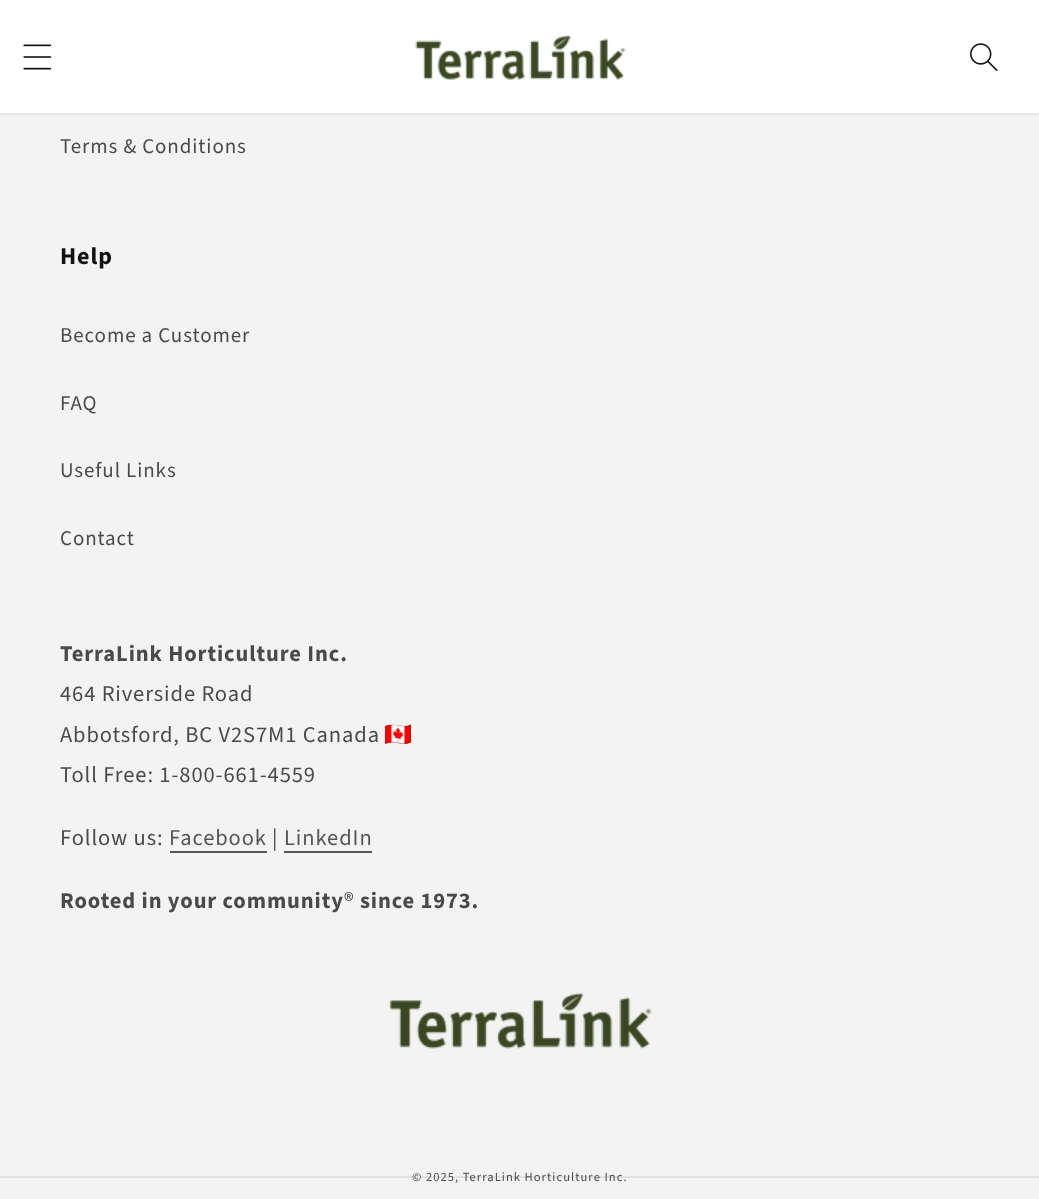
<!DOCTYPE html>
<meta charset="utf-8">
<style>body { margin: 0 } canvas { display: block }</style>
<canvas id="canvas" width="1039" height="1199"></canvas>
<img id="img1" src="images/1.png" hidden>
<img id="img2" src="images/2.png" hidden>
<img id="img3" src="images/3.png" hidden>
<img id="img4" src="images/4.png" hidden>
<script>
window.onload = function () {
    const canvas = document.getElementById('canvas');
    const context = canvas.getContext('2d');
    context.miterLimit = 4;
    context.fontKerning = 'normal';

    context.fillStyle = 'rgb(243, 243, 243)';
    context.fillRect(0, 0, 1039, 1199);
    context.fillStyle = 'rgb(255, 255, 255)';
    context.fillRect(0, 0, 1039, 113);
    context.fillStyle = 'rgb(236, 236, 236)';
    context.fillRect(0, 113, 1039, 1);
    context.drawImage(document.getElementById('img1'), 23, 44, 29, 26);
    context.drawImage(document.getElementById('img2'), 415, 35, 211, 45);
    context.drawImage(document.getElementById('img3'), 970, 43, 28, 28);
    context.fillStyle = 'rgb(225, 225, 225)';
    context.fillRect(0, 114, 1039, 1);
    context.fillStyle = 'rgb(86, 86, 86)';
    context.fillRect(170, 851, 97, 2);
    context.fillRect(284, 851, 88, 2);
    context.drawImage(document.getElementById('img4'), 389, 992, 263, 57);
    context.fillStyle = 'rgb(225, 225, 225)';
    context.fillRect(0, 1176, 1039, 2);
    context.letterSpacing = '0.9px';
    context.font = '21px Source Sans Pro';
    context.fillStyle = 'rgb(74, 74, 74)';
    context.fillText('Terms & Conditions', 60, 153);
    context.font = 'bold 24px Source Sans Pro';
    context.fillStyle = 'rgb(18, 18, 18)';
    context.fillText('Help', 60, 264);
    context.font = '21px Source Sans Pro';
    context.fillStyle = 'rgb(74, 74, 74)';
    context.fillText('Become a Customer', 60, 342);
    context.fillText('FAQ', 60, 410);
    context.fillText('Useful Links', 60, 477);
    context.fillText('Contact', 60, 545);
    context.font = 'bold 22.5px Source Sans Pro';
    context.fillText('TerraLink Horticulture Inc.', 60, 661);
    context.font = '22.5px Source Sans Pro';
    context.fillText('464 Riverside Road', 60, 701);
    context.fillText('Abbotsford, BC V2S7M1 Canada', 60, 742);
    context.font = '22.5px Noto Color Emoji';
    context.fillText('🇨🇦', 384, 742);
    context.font = '22.5px Source Sans Pro';
    context.fillText('Toll Free: 1-800-661-4559', 60, 782);
    context.fillText('Follow us:', 60, 845);
    context.fillStyle = 'rgb(86, 86, 86)';
    context.fillText('Facebook', 169, 845);
    context.fillStyle = 'rgb(74, 74, 74)';
    context.fillText('|', 272, 845);
    context.fillStyle = 'rgb(86, 86, 86)';
    context.fillText('LinkedIn', 284, 845);
    context.font = 'bold 22.5px Source Sans Pro';
    context.fillStyle = 'rgb(74, 74, 74)';
    context.fillText('Rooted in your community', 60, 908);
    context.font = '22.5px Source Sans Pro';
    context.fillText('®', 344, 908);
    context.font = 'bold 22.5px Source Sans Pro';
    context.fillText('since 1973.', 360, 908);
    context.letterSpacing = '1.05px';
    context.font = '12.5px Source Sans Pro';
    context.fillText('© 2025, TerraLink Horticulture Inc.', 412, 1181);
};
</script>
